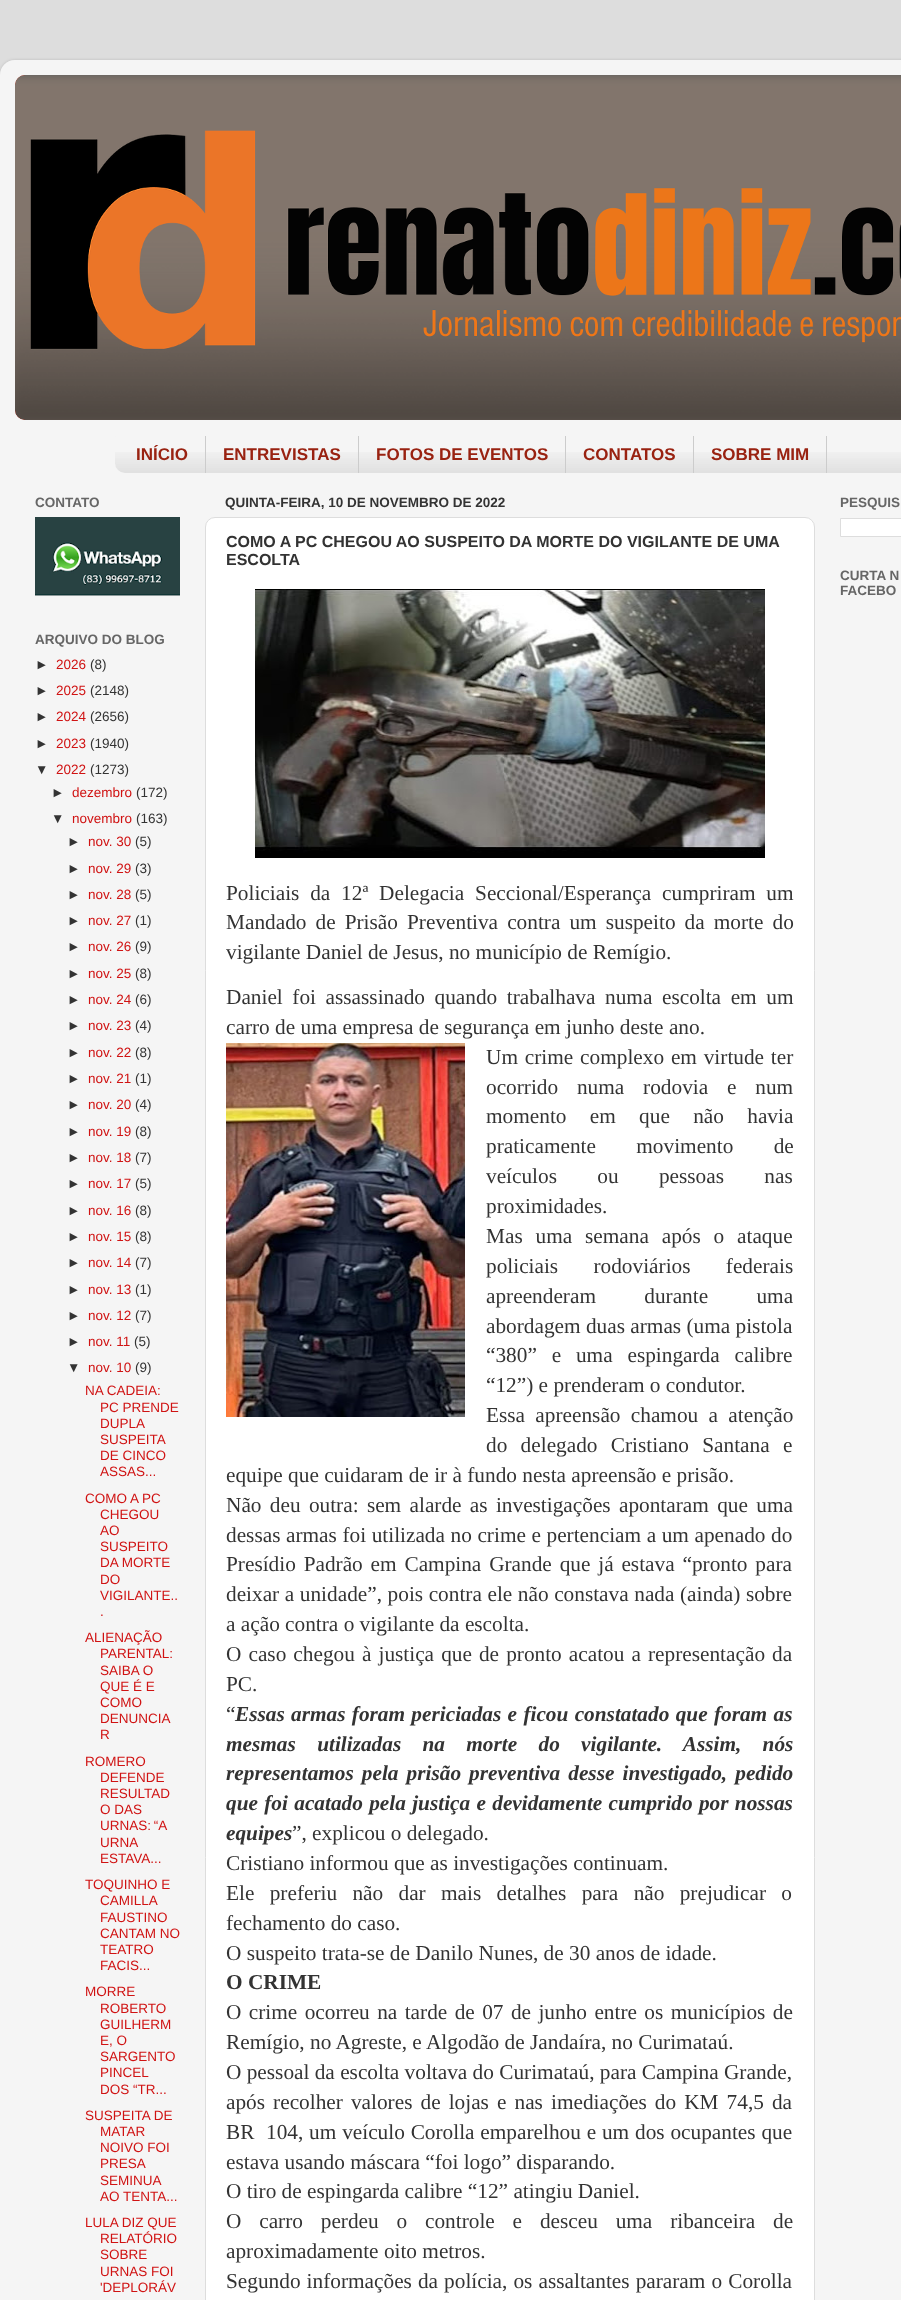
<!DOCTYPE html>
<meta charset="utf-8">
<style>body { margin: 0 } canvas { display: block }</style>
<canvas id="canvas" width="901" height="2300"></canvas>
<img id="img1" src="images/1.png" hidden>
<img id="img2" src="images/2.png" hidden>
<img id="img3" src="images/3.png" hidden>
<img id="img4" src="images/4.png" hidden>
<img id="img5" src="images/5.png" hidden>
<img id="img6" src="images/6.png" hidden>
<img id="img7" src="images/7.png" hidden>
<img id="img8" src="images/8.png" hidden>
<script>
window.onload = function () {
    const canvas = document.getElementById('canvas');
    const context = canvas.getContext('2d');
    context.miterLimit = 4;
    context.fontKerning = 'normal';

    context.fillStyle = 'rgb(221, 221, 221)';
    context.fillRect(0, 0, 901, 2300);
    context.save();
    context.beginPath();
    context.moveTo(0, 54);
    context.lineTo(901, 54);
    context.lineTo(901, 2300);
    context.lineTo(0, 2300);
    context.closePath();
    context.moveTo(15, 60);
    context.lineTo(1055, 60);
    context.bezierCurveTo(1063.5, 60, 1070, 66.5, 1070, 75);
    context.lineTo(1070, 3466);
    context.bezierCurveTo(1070, 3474.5, 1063.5, 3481, 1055, 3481);
    context.lineTo(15, 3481);
    context.bezierCurveTo(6.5, 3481, 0, 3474.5, 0, 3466);
    context.lineTo(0, 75);
    context.bezierCurveTo(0, 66.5, 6.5, 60, 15, 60);
    context.closePath();
    context.clip('evenodd');
    context.fillStyle = 'rgba(0, 0, 0, 0.15)';
    context.filter = 'blur(1.5px)';
    context.beginPath();
    context.roundRect(0, 60, 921, 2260, 15);
    context.fill();
    context.filter = 'none';
    context.restore();
    context.drawImage(document.getElementById('img1'), 0, 60, 901, 2240);
    context.fillStyle = 'rgb(153, 34, 17)';
    context.beginPath();
    context.roundRect(15, 75, 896, 345, 10);
    context.fill();
    context.drawImage(document.getElementById('img2'), 15, 75, 10, 10);
    context.drawImage(document.getElementById('img3'), 15, 75, 886, 345);
    context.drawImage(document.getElementById('img4'), 115, 463, 10, 10);
    context.fillStyle = 'rgb(245, 245, 245)';
    context.beginPath();
    context.roundRect(115, 427, 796, 46, 10);
    context.fill();
    context.drawImage(document.getElementById('img5'), 115, 452, 786, 21);
    context.fillStyle = 'rgb(204, 204, 204)';
    context.fillRect(205, 436, 1, 37);
    context.fillRect(358, 436, 1, 37);
    context.fillRect(565, 436, 1, 37);
    context.fillRect(693, 436, 1, 37);
    context.fillRect(826, 436, 1, 37);
    context.drawImage(document.getElementById('img6'), 35, 517, 145, 79);
    context.fillStyle = 'rgb(255, 255, 255)';
    context.beginPath();
    context.roundRect(205.5, 517.5, 609, 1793, 9.5);
    context.fill();
    context.strokeStyle = 'rgb(221, 221, 221)';
    context.stroke();
    context.drawImage(document.getElementById('img7'), 255, 589, 510, 269);
    context.drawImage(document.getElementById('img8'), 226, 1043, 239, 374);
    context.beginPath();
    context.rect(840.5, 518.5, 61, 18);
    context.fill();
    context.stroke();
    context.font = 'bold 17px Liberation Sans';
    context.fillStyle = 'rgb(153, 34, 17)';
    context.fillText('INÍCIO', 136, 460);
    context.fillText('ENTREVISTAS', 223, 460);
    context.fillText('FOTOS DE EVENTOS', 376, 460);
    context.fillText('CONTATOS', 583, 460);
    context.fillText('SOBRE MIM', 711, 460);
    context.font = 'bold 13.5px Liberation Sans';
    context.fillStyle = 'rgb(102, 102, 102)';
    context.fillText('CONTATO', 35, 507);
    context.fillText('ARQUIVO DO BLOG', 35, 644);
    context.font = '13.5px Liberation Sans';
    context.fillStyle = 'rgb(51, 51, 51)';
    context.fillText('►', 35, 669);
    context.fillStyle = 'rgb(208, 19, 19)';
    context.fillText('2026', 56, 669);
    context.fillStyle = 'rgb(51, 51, 51)';
    context.fillText('(8)', 90, 669);
    context.fillText('►', 35, 695);
    context.fillStyle = 'rgb(208, 19, 19)';
    context.fillText('2025', 56, 695);
    context.fillStyle = 'rgb(51, 51, 51)';
    context.fillText('(2148)', 90, 695);
    context.fillText('►', 35, 721);
    context.fillStyle = 'rgb(208, 19, 19)';
    context.fillText('2024', 56, 721);
    context.fillStyle = 'rgb(51, 51, 51)';
    context.fillText('(2656)', 90, 721);
    context.fillText('►', 35, 748);
    context.fillStyle = 'rgb(208, 19, 19)';
    context.fillText('2023', 56, 748);
    context.fillStyle = 'rgb(51, 51, 51)';
    context.fillText('(1940)', 90, 748);
    context.fillText('▼', 35, 774);
    context.fillStyle = 'rgb(208, 19, 19)';
    context.fillText('2022', 56, 774);
    context.fillStyle = 'rgb(51, 51, 51)';
    context.fillText('(1273)', 90, 774);
    context.fillText('►', 51, 797);
    context.fillStyle = 'rgb(208, 19, 19)';
    context.fillText('dezembro', 72, 797);
    context.fillStyle = 'rgb(51, 51, 51)';
    context.fillText('(172)', 136, 797);
    context.fillText('▼', 51, 823);
    context.fillStyle = 'rgb(208, 19, 19)';
    context.fillText('novembro', 72, 823);
    context.fillStyle = 'rgb(51, 51, 51)';
    context.fillText('(163)', 136, 823);
    context.fillText('►', 67, 846);
    context.fillStyle = 'rgb(208, 19, 19)';
    context.fillText('nov. 30', 88, 846);
    context.fillStyle = 'rgb(51, 51, 51)';
    context.fillText('(5)', 135, 846);
    context.fillText('►', 67, 873);
    context.fillStyle = 'rgb(208, 19, 19)';
    context.fillText('nov. 29', 88, 873);
    context.fillStyle = 'rgb(51, 51, 51)';
    context.fillText('(3)', 135, 873);
    context.fillText('►', 67, 899);
    context.fillStyle = 'rgb(208, 19, 19)';
    context.fillText('nov. 28', 88, 899);
    context.fillStyle = 'rgb(51, 51, 51)';
    context.fillText('(5)', 135, 899);
    context.fillText('►', 67, 925);
    context.fillStyle = 'rgb(208, 19, 19)';
    context.fillText('nov. 27', 88, 925);
    context.fillStyle = 'rgb(51, 51, 51)';
    context.fillText('(1)', 135, 925);
    context.fillText('►', 67, 951);
    context.fillStyle = 'rgb(208, 19, 19)';
    context.fillText('nov. 26', 88, 951);
    context.fillStyle = 'rgb(51, 51, 51)';
    context.fillText('(9)', 135, 951);
    context.fillText('►', 67, 978);
    context.fillStyle = 'rgb(208, 19, 19)';
    context.fillText('nov. 25', 88, 978);
    context.fillStyle = 'rgb(51, 51, 51)';
    context.fillText('(8)', 135, 978);
    context.fillText('►', 67, 1004);
    context.fillStyle = 'rgb(208, 19, 19)';
    context.fillText('nov. 24', 88, 1004);
    context.fillStyle = 'rgb(51, 51, 51)';
    context.fillText('(6)', 135, 1004);
    context.fillText('►', 67, 1030);
    context.fillStyle = 'rgb(208, 19, 19)';
    context.fillText('nov. 23', 88, 1030);
    context.fillStyle = 'rgb(51, 51, 51)';
    context.fillText('(4)', 135, 1030);
    context.fillText('►', 67, 1057);
    context.fillStyle = 'rgb(208, 19, 19)';
    context.fillText('nov. 22', 88, 1057);
    context.fillStyle = 'rgb(51, 51, 51)';
    context.fillText('(8)', 135, 1057);
    context.fillText('►', 67, 1083);
    context.fillStyle = 'rgb(208, 19, 19)';
    context.fillText('nov. 21', 88, 1083);
    context.fillStyle = 'rgb(51, 51, 51)';
    context.fillText('(1)', 135, 1083);
    context.fillText('►', 67, 1109);
    context.fillStyle = 'rgb(208, 19, 19)';
    context.fillText('nov. 20', 88, 1109);
    context.fillStyle = 'rgb(51, 51, 51)';
    context.fillText('(4)', 135, 1109);
    context.fillText('►', 67, 1136);
    context.fillStyle = 'rgb(208, 19, 19)';
    context.fillText('nov. 19', 88, 1136);
    context.fillStyle = 'rgb(51, 51, 51)';
    context.fillText('(8)', 135, 1136);
    context.fillText('►', 67, 1162);
    context.fillStyle = 'rgb(208, 19, 19)';
    context.fillText('nov. 18', 88, 1162);
    context.fillStyle = 'rgb(51, 51, 51)';
    context.fillText('(7)', 135, 1162);
    context.fillText('►', 67, 1188);
    context.fillStyle = 'rgb(208, 19, 19)';
    context.fillText('nov. 17', 88, 1188);
    context.fillStyle = 'rgb(51, 51, 51)';
    context.fillText('(5)', 135, 1188);
    context.fillText('►', 67, 1215);
    context.fillStyle = 'rgb(208, 19, 19)';
    context.fillText('nov. 16', 88, 1215);
    context.fillStyle = 'rgb(51, 51, 51)';
    context.fillText('(8)', 135, 1215);
    context.fillText('►', 67, 1241);
    context.fillStyle = 'rgb(208, 19, 19)';
    context.fillText('nov. 15', 88, 1241);
    context.fillStyle = 'rgb(51, 51, 51)';
    context.fillText('(8)', 135, 1241);
    context.fillText('►', 67, 1267);
    context.fillStyle = 'rgb(208, 19, 19)';
    context.fillText('nov. 14', 88, 1267);
    context.fillStyle = 'rgb(51, 51, 51)';
    context.fillText('(7)', 135, 1267);
    context.fillText('►', 67, 1294);
    context.fillStyle = 'rgb(208, 19, 19)';
    context.fillText('nov. 13', 88, 1294);
    context.fillStyle = 'rgb(51, 51, 51)';
    context.fillText('(1)', 135, 1294);
    context.fillText('►', 67, 1320);
    context.fillStyle = 'rgb(208, 19, 19)';
    context.fillText('nov. 12', 88, 1320);
    context.fillStyle = 'rgb(51, 51, 51)';
    context.fillText('(7)', 135, 1320);
    context.fillText('►', 67, 1346);
    context.fillStyle = 'rgb(208, 19, 19)';
    context.fillText('nov. 11', 88, 1346);
    context.fillStyle = 'rgb(51, 51, 51)';
    context.fillText('(5)', 134, 1346);
    context.fillText('▼', 67, 1372);
    context.fillStyle = 'rgb(208, 19, 19)';
    context.fillText('nov. 10', 88, 1372);
    context.fillStyle = 'rgb(51, 51, 51)';
    context.fillText('(9)', 135, 1372);
    context.fillStyle = 'rgb(208, 19, 19)';
    context.fillText('NA CADEIA:', 85, 1395);
    context.fillText('PC PRENDE', 100, 1412);
    context.fillText('DUPLA', 100, 1428);
    context.fillText('SUSPEITA', 100, 1444);
    context.fillText('DE CINCO', 100, 1460);
    context.fillText('ASSAS...', 100, 1476);
    context.fillText('COMO A PC', 85, 1503);
    context.fillText('CHEGOU', 100, 1519);
    context.fillText('AO', 100, 1535);
    context.fillText('SUSPEITO', 100, 1551);
    context.fillText('DA MORTE', 100, 1567);
    context.fillText('DO', 100, 1584);
    context.fillText('VIGILANTE..', 100, 1600);
    context.fillText('.', 100, 1616);
    context.fillText('ALIENAÇÃO', 85, 1642);
    context.fillText('PARENTAL:', 100, 1658);
    context.fillText('SAIBA O', 100, 1675);
    context.fillText('QUE É E', 100, 1691);
    context.fillText('COMO', 100, 1707);
    context.fillText('DENUNCIA', 100, 1723);
    context.fillText('R', 100, 1739);
    context.fillText('ROMERO', 85, 1766);
    context.fillText('DEFENDE', 100, 1782);
    context.fillText('RESULTAD', 100, 1798);
    context.fillText('O DAS', 100, 1814);
    context.wordSpacing = '-1px';
    context.fillText('URNAS: “A', 100, 1830);
    context.wordSpacing = '0px';
    context.fillText('URNA', 100, 1847);
    context.fillText('ESTAVA...', 100, 1863);
    context.fillText('TOQUINHO E', 85, 1889);
    context.fillText('CAMILLA', 100, 1905);
    context.fillText('FAUSTINO', 100, 1922);
    context.fillText('CANTAM NO', 100, 1938);
    context.fillText('TEATRO', 100, 1954);
    context.fillText('FACIS...', 100, 1970);
    context.fillText('MORRE', 85, 1996);
    context.fillText('ROBERTO', 100, 2013);
    context.fillText('GUILHERM', 100, 2029);
    context.fillText('E, O', 100, 2045);
    context.fillText('SARGENTO', 100, 2061);
    context.fillText('PINCEL', 100, 2077);
    context.fillText('DOS “TR...', 100, 2094);
    context.fillText('SUSPEITA DE', 85, 2120);
    context.fillText('MATAR', 100, 2136);
    context.fillText('NOIVO FOI', 100, 2152);
    context.fillText('PRESA', 100, 2168);
    context.fillText('SEMINUA', 100, 2185);
    context.fillText('AO TENTA...', 100, 2201);
    context.fillText('LULA DIZ QUE', 85, 2227);
    context.fillText('RELATÓRIO', 100, 2243);
    context.fillText('SOBRE', 100, 2259);
    context.fillText('URNAS FOI', 100, 2276);
    context.fillText('\'DEPLORÁV', 100, 2292);
    context.font = 'bold 13.5px Liberation Sans';
    context.fillStyle = 'rgb(51, 51, 51)';
    context.fillText('QUINTA-FEIRA, 10 DE NOVEMBRO DE 2022', 225, 507);
    context.font = 'bold 16px Liberation Sans';
    context.fillText('COMO A PC CHEGOU AO SUSPEITO DA MORTE DO VIGILANTE DE UMA', 226, 547);
    context.fillText('ESCOLTA', 226, 565);
    context.wordSpacing = '5.5px';
    context.font = '21.3px Liberation Serif';
    context.fillText('Policiais da 12ª Delegacia Seccional/Esperança cumpriram um', 226, 900);
    context.wordSpacing = '3.75px';
    context.fillText('Mandado de Prisão Preventiva contra um suspeito da morte do', 226, 929);
    context.wordSpacing = '0px';
    context.fillText('vigilante Daniel de Jesus, no município de Remígio.', 226, 959);
    context.wordSpacing = '4.25px';
    context.fillText('Daniel foi assassinado quando trabalhava numa escolta em um', 226, 1004);
    context.wordSpacing = '0px';
    context.fillText('carro de uma empresa de segurança em junho deste ano.', 226, 1034);
    context.wordSpacing = '1.5px';
    context.fillText('Um crime complexo em virtude ter', 486, 1064);
    context.wordSpacing = '13.5px';
    context.fillText('ocorrido numa rodovia e num', 486, 1094);
    context.wordSpacing = '18px';
    context.fillText('momento em que não havia', 486, 1123);
    context.wordSpacing = '35px';
    context.fillText('praticamente movimento de', 486, 1153);
    context.fillText('veículos ou pessoas nas', 486, 1183);
    context.wordSpacing = '0px';
    context.fillText('proximidades.', 486, 1213);
    context.wordSpacing = '7.5px';
    context.fillText('Mas uma semana após o ataque', 486, 1243);
    context.wordSpacing = '30px';
    context.fillText('policiais rodoviários federais', 486, 1273);
    context.wordSpacing = '43px';
    context.fillText('apreenderam durante uma', 486, 1303);
    context.wordSpacing = '0px';
    context.fillText('abordagem duas armas (uma pistola', 486, 1333);
    context.wordSpacing = '9.5px';
    context.fillText('“380” e uma espingarda calibre', 486, 1362);
    context.wordSpacing = '0px';
    context.fillText('“12”) e prenderam o condutor.', 486, 1392);
    context.wordSpacing = '5px';
    context.fillText('Essa apreensão chamou a atenção', 486, 1422);
    context.wordSpacing = '8px';
    context.fillText('do delegado Cristiano Santana e', 486, 1452);
    context.wordSpacing = '0px';
    context.fillText('equipe que cuidaram de ir à fundo nesta apreensão e prisão.', 226, 1482);
    context.wordSpacing = '3px';
    context.fillText('Não deu outra: sem alarde as investigações apontaram que uma', 226, 1512);
    context.wordSpacing = '0.25px';
    context.fillText('dessas armas foi utilizada no crime e pertenciam a um apenado do', 226, 1542);
    context.wordSpacing = '2.5px';
    context.fillText('Presídio Padrão em Campina Grande que já estava “pronto para', 226, 1571);
    context.wordSpacing = '0.25px';
    context.fillText('deixar a unidade”, pois contra ele não constava nada (ainda) sobre', 226, 1601);
    context.wordSpacing = '0px';
    context.fillText('a ação contra o vigilante da escolta.', 226, 1631);
    context.wordSpacing = '1.75px';
    context.fillText('O caso chegou à justiça que de pronto acatou a representação da', 226, 1661);
    context.wordSpacing = '0px';
    context.fillText('PC.', 226, 1691);
    context.fillText('“', 226, 1721);
    context.wordSpacing = '1px';
    context.font = 'italic bold 21.3px Liberation Serif';
    context.fillText('Essas armas foram periciadas e ficou constatado que foram as', 235, 1721);
    context.wordSpacing = '16px';
    context.fillText('mesmas utilizadas na morte do vigilante. Assim, nós', 226, 1751);
    context.wordSpacing = '2.75px';
    context.fillText('representamos pela prisão preventiva desse investigado, pedido', 226, 1780);
    context.wordSpacing = '1px';
    context.fillText('que foi acatado pela justiça e devidamente cumprido por nossas', 226, 1810);
    context.wordSpacing = '0px';
    context.fillText('equipes', 226, 1840);
    context.font = '21.3px Liberation Serif';
    context.fillText('”, explicou o delegado.', 292, 1840);
    context.fillText('Cristiano informou que as investigações continuam.', 226, 1870);
    context.wordSpacing = '10px';
    context.fillText('Ele preferiu não dar mais detalhes para não prejudicar o', 226, 1900);
    context.wordSpacing = '0px';
    context.fillText('fechamento do caso.', 226, 1930);
    context.fillText('O suspeito trata-se de Danilo Nunes, de 30 anos de idade.', 226, 1960);
    context.font = 'bold 21.3px Liberation Serif';
    context.fillText('O CRIME', 226, 1989);
    context.wordSpacing = '2.1px';
    context.font = '21.3px Liberation Serif';
    context.fillText('O crime ocorreu na tarde de 07 de junho entre os municípios de', 226, 2019);
    context.wordSpacing = '0px';
    context.fillText('Remígio, no Agreste, e Algodão de Jandaíra, no Curimataú.', 226, 2049);
    context.fillText('O pessoal da escolta voltava do Curimataú, para Campina Grande,', 226, 2079);
    context.wordSpacing = '2.75px';
    context.fillText('após recolher valores de lojas e nas imediações do KM 74,5 da', 226, 2109);
    context.wordSpacing = '0px';
    context.fillText('BR', 226, 2139);
    context.wordSpacing = '0.5px';
    context.fillText('104, um veículo Corolla emparelhou e um dos ocupantes que', 266, 2139);
    context.wordSpacing = '0px';
    context.fillText('estava usando máscara “foi logo” disparando.', 226, 2169);
    context.fillText('O tiro de espingarda calibre “12” atingiu Daniel.', 226, 2198);
    context.wordSpacing = '12.5px';
    context.fillText('O carro perdeu o controle e desceu uma ribanceira de', 226, 2228);
    context.wordSpacing = '0px';
    context.fillText('aproximadamente oito metros.', 226, 2258);
    context.wordSpacing = '0.75px';
    context.fillText('Segundo informações da polícia, os assaltantes pararam o Corolla', 226, 2288);
    context.wordSpacing = '0px';
    context.font = 'bold 13.5px Liberation Sans';
    context.fillStyle = 'rgb(102, 102, 102)';
    context.fillText('PESQUIS', 840, 507);
    context.fillText('CURTA N', 840, 580);
    context.fillText('FACEBO', 840, 595);
};
</script>
